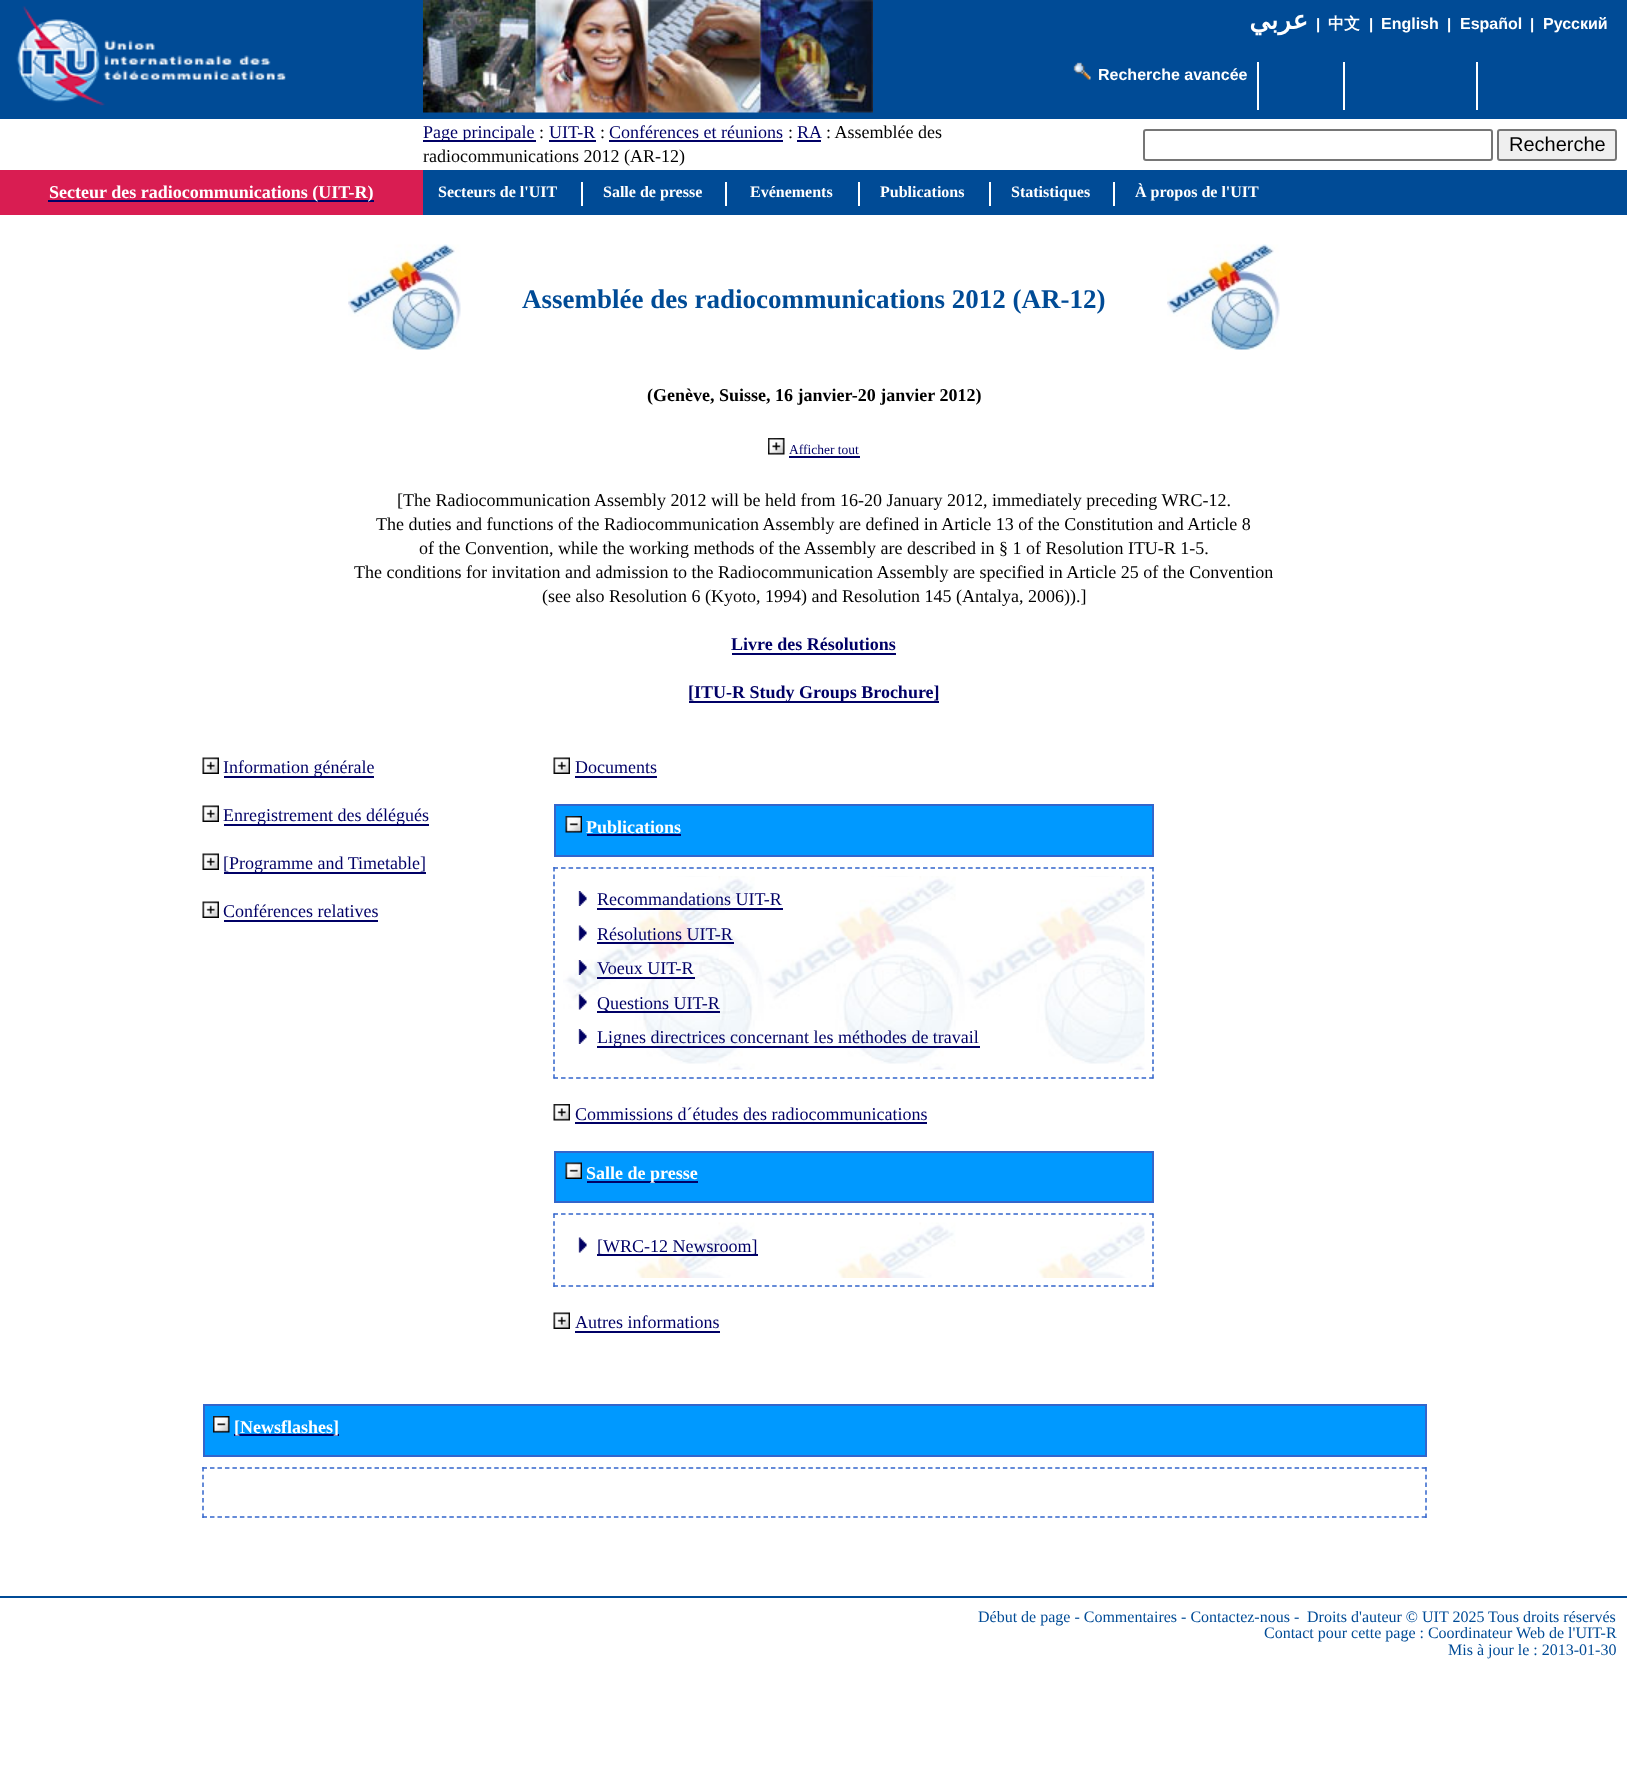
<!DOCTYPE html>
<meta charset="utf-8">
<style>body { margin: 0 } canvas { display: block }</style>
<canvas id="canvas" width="1627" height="1784"></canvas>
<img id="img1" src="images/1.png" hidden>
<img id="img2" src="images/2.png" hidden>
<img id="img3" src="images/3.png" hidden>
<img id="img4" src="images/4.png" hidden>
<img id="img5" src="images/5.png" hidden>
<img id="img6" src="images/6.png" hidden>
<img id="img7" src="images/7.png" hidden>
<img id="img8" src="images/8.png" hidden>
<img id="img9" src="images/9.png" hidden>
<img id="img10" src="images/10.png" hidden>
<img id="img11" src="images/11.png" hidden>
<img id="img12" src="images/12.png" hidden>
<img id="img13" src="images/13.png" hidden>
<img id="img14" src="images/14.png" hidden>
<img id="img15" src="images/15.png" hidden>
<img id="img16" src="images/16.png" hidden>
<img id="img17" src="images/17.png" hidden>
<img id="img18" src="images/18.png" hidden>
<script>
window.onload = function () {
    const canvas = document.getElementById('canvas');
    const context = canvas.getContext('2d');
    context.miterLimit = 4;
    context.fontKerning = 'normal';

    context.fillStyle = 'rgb(255, 255, 255)';
    context.fillRect(0, 0, 1627, 1784);
    context.fillStyle = 'rgb(0, 75, 150)';
    context.fillRect(0, 0, 1627, 119);
    context.drawImage(document.getElementById('img1'), 16, 6, 270, 100);
    context.drawImage(document.getElementById('img2'), 423, 0, 450, 113);
    context.fillStyle = 'rgb(255, 255, 255)';
    context.fillRect(1257, 62, 2, 48);
    context.drawImage(document.getElementById('img3'), 1073, 62, 18, 18);
    context.fillRect(1343, 62, 2, 48);
    context.fillRect(1476, 62, 2, 48);
    context.fillStyle = 'rgb(0, 0, 102)';
    context.fillRect(423, 140, 113, 2);
    context.fillRect(549, 140, 47, 2);
    context.fillRect(609, 140, 174, 2);
    context.fillRect(797, 140, 24, 2);
    context.beginPath();
    context.roundRect(1144, 130, 348, 30, 2);
    context.strokeStyle = 'rgb(118, 118, 118)';
    context.lineWidth = 2;
    context.stroke();
    context.fillStyle = 'rgb(239, 239, 239)';
    context.beginPath();
    context.roundRect(1498, 130, 118, 30, 2);
    context.fill();
    context.stroke();
    context.fillStyle = 'rgb(217, 29, 82)';
    context.fillRect(0, 170, 423, 45);
    context.fillStyle = 'rgb(0, 0, 102)';
    context.fillRect(48, 200, 326, 2);
    context.fillStyle = 'rgb(0, 75, 150)';
    context.fillRect(423, 170, 1204, 45);
    context.fillRect(0, 1596, 1627, 2);
    context.drawImage(document.getElementById('img4'), 348, 244, 113, 106);
    context.drawImage(document.getElementById('img5'), 1167, 244, 113, 106);
    context.drawImage(document.getElementById('img6'), 768, 438, 17, 17);
    context.fillStyle = 'rgb(0, 0, 102)';
    context.fillRect(789, 456, 71, 2);
    context.fillRect(732, 653, 164, 2);
    context.fillRect(689, 701, 250, 2);
    context.drawImage(document.getElementById('img7'), 202, 757, 17, 17);
    context.fillRect(224, 776, 150, 2);
    context.drawImage(document.getElementById('img7'), 202, 805, 17, 17);
    context.fillRect(224, 824, 205, 2);
    context.drawImage(document.getElementById('img7'), 202, 853, 17, 17);
    context.fillRect(224, 872, 202, 2);
    context.drawImage(document.getElementById('img7'), 202, 901, 17, 17);
    context.fillRect(224, 920, 154, 2);
    context.drawImage(document.getElementById('img8'), 553, 757, 17, 17);
    context.fillRect(575, 776, 82, 2);
    context.fillStyle = 'rgb(0, 153, 255)';
    context.beginPath();
    context.rect(555, 805, 598, 51);
    context.fill();
    context.strokeStyle = 'rgb(51, 102, 204)';
    context.stroke();
    context.drawImage(document.getElementById('img9'), 565, 816, 17, 17);
    context.fillStyle = 'rgb(0, 0, 102)';
    context.fillRect(587, 834, 94, 2);
    context.beginPath();
    context.moveTo(553.5, 868);
    context.lineTo(1153.5, 868);
    context.lineWidth = 1.5;
    context.setLineDash([4.5, 3.04]);
    context.stroke();
    context.beginPath();
    context.moveTo(1153, 867);
    context.lineTo(1153, 1078.5);
    context.setLineDash([4.5, 2.9]);
    context.stroke();
    context.beginPath();
    context.moveTo(553.5, 1078);
    context.lineTo(1153.5, 1078);
    context.setLineDash([4.5, 3.04]);
    context.stroke();
    context.beginPath();
    context.moveTo(554, 867);
    context.lineTo(554, 1078.5);
    context.setLineDash([4.5, 2.9]);
    context.stroke();
    context.drawImage(document.getElementById('img10'), 563, 876, 582, 194);
    context.drawImage(document.getElementById('img11'), 578, 891, 9, 15);
    context.fillRect(597, 908, 186, 2);
    context.drawImage(document.getElementById('img12'), 578, 925, 9, 16);
    context.fillRect(597, 942, 137, 2);
    context.drawImage(document.getElementById('img13'), 578, 960, 9, 15);
    context.fillRect(597, 977, 98, 2);
    context.drawImage(document.getElementById('img14'), 578, 994, 9, 16);
    context.fillRect(597, 1011, 123, 2);
    context.drawImage(document.getElementById('img11'), 578, 1029, 9, 15);
    context.fillRect(597, 1046, 383, 2);
    context.drawImage(document.getElementById('img15'), 553, 1104, 17, 17);
    context.fillRect(575, 1122, 352, 2);
    context.fillStyle = 'rgb(0, 153, 255)';
    context.beginPath();
    context.rect(555, 1152, 598, 50);
    context.fill();
    context.lineWidth = 2;
    context.setLineDash([]);
    context.stroke();
    context.drawImage(document.getElementById('img16'), 565, 1162, 17, 17);
    context.fillStyle = 'rgb(0, 0, 102)';
    context.fillRect(587, 1181, 111, 2);
    context.beginPath();
    context.moveTo(553.5, 1214);
    context.lineTo(1153.5, 1214);
    context.lineWidth = 1.5;
    context.setLineDash([4.5, 3.04]);
    context.stroke();
    context.beginPath();
    context.moveTo(1153, 1213.5);
    context.lineTo(1153, 1287);
    context.setLineDash([4.5, 3.17]);
    context.stroke();
    context.beginPath();
    context.moveTo(553.5, 1286);
    context.lineTo(1153.5, 1286);
    context.setLineDash([4.5, 3.04]);
    context.stroke();
    context.beginPath();
    context.moveTo(554, 1213.5);
    context.lineTo(554, 1287);
    context.setLineDash([4.5, 3.17]);
    context.stroke();
    context.drawImage(document.getElementById('img17'), 635, 1222, 510, 56);
    context.drawImage(document.getElementById('img12'), 578, 1237, 9, 16);
    context.fillRect(597, 1254, 161, 2);
    context.drawImage(document.getElementById('img8'), 553, 1312, 17, 17);
    context.fillRect(575, 1331, 145, 2);
    context.fillStyle = 'rgb(0, 153, 255)';
    context.beginPath();
    context.rect(204, 1405, 1222, 51);
    context.fill();
    context.lineWidth = 2;
    context.setLineDash([]);
    context.stroke();
    context.drawImage(document.getElementById('img18'), 213, 1416, 17, 17);
    context.fillStyle = 'rgb(0, 0, 102)';
    context.fillRect(234, 1434, 105, 2);
    context.beginPath();
    context.moveTo(202.5, 1468);
    context.lineTo(1426.5, 1468);
    context.lineWidth = 1.5;
    context.setLineDash([4.5, 2.98]);
    context.stroke();
    context.beginPath();
    context.moveTo(1426, 1467);
    context.lineTo(1426, 1518);
    context.setLineDash([4.5, 3.25]);
    context.stroke();
    context.beginPath();
    context.moveTo(202.5, 1517);
    context.lineTo(1426.5, 1517);
    context.setLineDash([4.5, 2.98]);
    context.stroke();
    context.beginPath();
    context.moveTo(203, 1467);
    context.lineTo(203, 1518);
    context.setLineDash([4.5, 3.25]);
    context.stroke();
    context.fillStyle = 'rgb(255, 255, 255)';
    context.fillRect(581, 182, 2, 24);
    context.fillRect(725, 182, 2, 24);
    context.fillRect(858, 182, 2, 24);
    context.fillRect(989, 182, 2, 24);
    context.fillRect(1113, 182, 2, 24);
    context.direction = 'rtl';
    context.font = 'bold 26px DejaVu Sans';
    context.fillText('عربي', 1308, 29);
    context.direction = 'ltr';
    context.font = 'bold 15px Liberation Sans';
    context.fillText('|', 1316, 29);
    context.font = 'bold 16px WenQuanYi Zen Hei';
    context.fillText('中文', 1328, 29);
    context.font = 'bold 15px Liberation Sans';
    context.fillText('|', 1369, 29);
    context.font = 'bold 16px Liberation Sans';
    context.fillText('English', 1381, 29);
    context.font = 'bold 15px Liberation Sans';
    context.fillText('|', 1447, 29);
    context.font = 'bold 16px Liberation Sans';
    context.fillText('Español', 1460, 29);
    context.font = 'bold 15px Liberation Sans';
    context.fillText('|', 1530, 29);
    context.font = 'bold 16px Liberation Sans';
    context.fillText('Русский', 1543, 29);
    context.fillText('Recherche avancée', 1098, 80);
    context.font = '18px Liberation Serif';
    context.fillStyle = 'rgb(0, 0, 102)';
    context.fillText('Page principale', 423, 138);
    context.fillStyle = 'rgb(0, 0, 0)';
    context.fillText(':', 539, 138);
    context.fillStyle = 'rgb(0, 0, 102)';
    context.fillText('UIT-R', 549, 138);
    context.fillStyle = 'rgb(0, 0, 0)';
    context.fillText(':', 600, 138);
    context.fillStyle = 'rgb(0, 0, 102)';
    context.fillText('Conférences et réunions', 609, 138);
    context.fillStyle = 'rgb(0, 0, 0)';
    context.fillText(':', 788, 138);
    context.fillStyle = 'rgb(0, 0, 102)';
    context.fillText('RA', 797, 138);
    context.fillStyle = 'rgb(0, 0, 0)';
    context.fillText(': Assemblée des', 826, 138);
    context.fillText('radiocommunications 2012 (AR-12)', 423, 162);
    context.font = '20px Liberation Sans';
    context.fillText('Recherche', 1509, 151);
    context.font = 'bold 18px Liberation Serif';
    context.fillStyle = 'rgb(255, 255, 255)';
    context.fillText('Secteur des radiocommunications (UIT-R)', 49, 198);
    context.font = 'bold 27px Liberation Serif';
    context.fillStyle = 'rgb(0, 75, 150)';
    context.fillText('Assemblée des radiocommunications 2012 (AR-12)', 522, 308);
    context.font = 'bold 18px Liberation Serif';
    context.fillStyle = 'rgb(0, 0, 0)';
    context.fillText('(Genève, Suisse, 16 janvier-20 janvier 2012)', 647, 401);
    context.font = '13.5px Liberation Serif';
    context.fillStyle = 'rgb(0, 0, 102)';
    context.fillText('Afficher tout', 789, 454);
    context.font = '18px Liberation Serif';
    context.fillStyle = 'rgb(0, 0, 0)';
    context.fillText('[The Radiocommunication Assembly 2012 will be held from 16-20 January 2012, immediately preceding WRC-12.', 397, 506);
    context.fillText('The duties and functions of the Radiocommunication Assembly are defined in Article 13 of the Constitution and Article 8', 376, 530);
    context.fillText('of the Convention, while the working methods of the Assembly are described in § 1 of Resolution ITU-R 1-5.', 419, 554);
    context.fillText('The conditions for invitation and admission to the Radiocommunication Assembly are specified in Article 25 of the Convention', 354, 578);
    context.fillText('(see also Resolution 6 (Kyoto, 1994) and Resolution 145 (Antalya, 2006)).]', 542, 602);
    context.font = 'bold 18px Liberation Serif';
    context.fillStyle = 'rgb(0, 0, 102)';
    context.fillText('Livre des Résolutions', 731, 650);
    context.fillText('[ITU-R Study Groups Brochure]', 688, 698);
    context.font = '18px Liberation Serif';
    context.fillText('Information générale', 223, 773);
    context.fillText('Enregistrement des délégués', 223, 821);
    context.fillText('[Programme and Timetable]', 223, 869);
    context.fillText('Conférences relatives', 223, 917);
    context.fillText('Documents', 575, 773);
    context.font = 'bold 18px Liberation Serif';
    context.fillStyle = 'rgb(255, 255, 255)';
    context.fillText('Publications', 586, 833);
    context.font = '18px Liberation Serif';
    context.fillStyle = 'rgb(0, 0, 102)';
    context.fillText('Recommandations UIT-R', 597, 905);
    context.fillText('Résolutions UIT-R', 597, 940);
    context.fillText('Voeux UIT-R', 597, 974);
    context.fillText('Questions UIT-R', 597, 1009);
    context.fillText('Lignes directrices concernant les méthodes de travail', 597, 1043);
    context.fillText('Commissions d´études des radiocommunications', 575, 1120);
    context.font = 'bold 18px Liberation Serif';
    context.fillStyle = 'rgb(255, 255, 255)';
    context.fillText('Salle de presse', 586, 1179);
    context.font = '18px Liberation Serif';
    context.fillStyle = 'rgb(0, 0, 102)';
    context.fillText('[WRC-12 Newsroom]', 597, 1252);
    context.fillText('Autres informations', 575, 1328);
    context.font = 'bold 18px Liberation Serif';
    context.fillStyle = 'rgb(255, 255, 255)';
    context.fillText('[Newsflashes]', 234, 1433);
    context.font = '16px Liberation Serif';
    context.fillStyle = 'rgb(0, 75, 150)';
    context.fillText('Début de page - Commentaires - Contactez-nous -', 978, 1622);
    context.fillText('Droits d\'auteur © UIT 2025', 1307, 1622);
    context.fillText('Tous droits réservés', 1488, 1622);
    context.fillText('Contact pour cette page : Coordinateur Web de l\'UIT-R', 1264, 1638);
    context.fillText('Mis à jour le : 2013-01-30', 1448, 1655);
    context.font = 'bold 16px Liberation Serif';
    context.fillStyle = 'rgb(255, 255, 255)';
    context.fillText('Secteurs de l\'UIT', 438, 197);
    context.fillText('Salle de presse', 603, 197);
    context.fillText('Evénements', 750, 197);
    context.fillText('Publications', 880, 197);
    context.fillText('Statistiques', 1011, 197);
    context.fillText('À propos de l\'UIT', 1135, 197);
};
</script>
